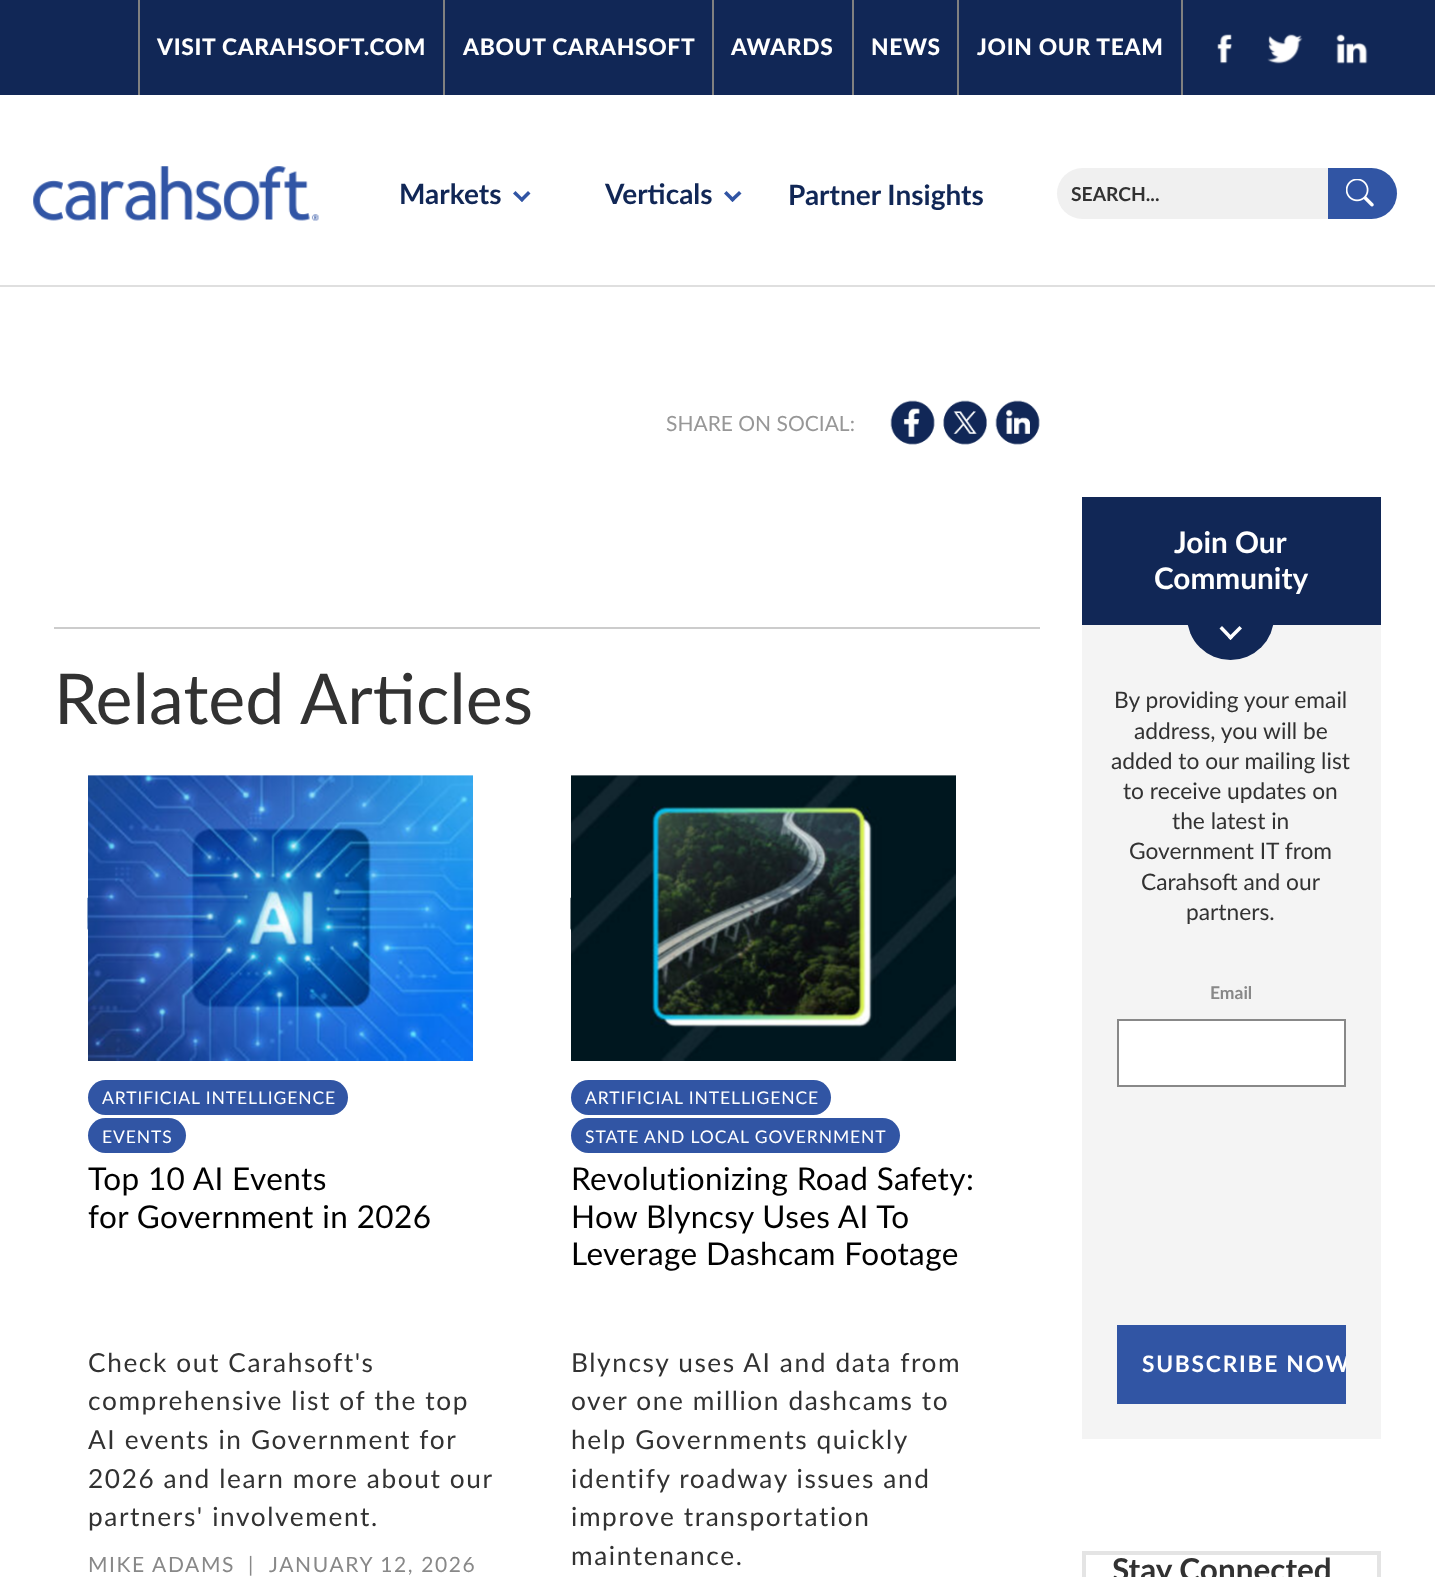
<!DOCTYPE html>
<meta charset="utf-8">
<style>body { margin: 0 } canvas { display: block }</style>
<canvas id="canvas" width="1435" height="1577"></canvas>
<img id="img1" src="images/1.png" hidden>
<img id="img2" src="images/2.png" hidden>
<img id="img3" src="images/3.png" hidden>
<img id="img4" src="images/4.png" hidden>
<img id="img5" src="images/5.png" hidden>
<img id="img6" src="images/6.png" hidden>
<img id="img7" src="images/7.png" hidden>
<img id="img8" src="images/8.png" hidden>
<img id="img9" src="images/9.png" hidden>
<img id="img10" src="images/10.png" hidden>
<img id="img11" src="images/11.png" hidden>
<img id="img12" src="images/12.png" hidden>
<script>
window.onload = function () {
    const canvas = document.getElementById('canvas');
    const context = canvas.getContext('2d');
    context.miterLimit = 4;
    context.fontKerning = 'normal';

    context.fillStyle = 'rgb(255, 255, 255)';
    context.fillRect(0, 0, 1435, 1577);
    context.fillStyle = 'rgb(17, 39, 86)';
    context.fillRect(0, 0, 1435, 95);
    context.fillStyle = 'rgb(128, 128, 128)';
    context.fillRect(138, 0, 2, 95);
    context.fillRect(443, 0, 2, 95);
    context.fillRect(712, 0, 2, 95);
    context.fillRect(852, 0, 2, 95);
    context.fillRect(957, 0, 2, 95);
    context.fillRect(1181, 0, 2, 95);
    context.drawImage(document.getElementById('img1'), 1217, 34, 16, 30);
    context.drawImage(document.getElementById('img2'), 1267, 34, 36, 30);
    context.drawImage(document.getElementById('img3'), 1336, 34, 32, 30);
    context.fillStyle = 'rgb(223, 223, 223)';
    context.fillRect(0, 285, 1435, 2);
    context.drawImage(document.getElementById('img4'), 33, 166, 286, 55);
    context.fillStyle = 'rgb(49, 85, 164)';
    context.beginPath();
    context.moveTo(528, 191);
    context.lineTo(530.5, 193.5);
    context.lineTo(522, 202);
    context.lineTo(519.5, 199.5);
    context.closePath();
    context.fill();
    context.beginPath();
    context.moveTo(515.5, 191);
    context.lineTo(524, 199.5);
    context.lineTo(522, 202);
    context.lineTo(513, 193.5);
    context.closePath();
    context.fill();
    context.beginPath();
    context.moveTo(739, 191);
    context.lineTo(741.5, 193.5);
    context.lineTo(732.5, 202);
    context.lineTo(730, 199.5);
    context.closePath();
    context.fill();
    context.beginPath();
    context.moveTo(726.5, 191);
    context.lineTo(735, 199.5);
    context.lineTo(732.5, 202);
    context.lineTo(724, 193.5);
    context.closePath();
    context.fill();
    context.fillStyle = 'rgb(240, 240, 240)';
    context.beginPath();
    context.roundRect(1057, 168, 271, 51, [25.5, 0, 0, 25.5]);
    context.fill();
    context.fillStyle = 'rgb(49, 85, 164)';
    context.beginPath();
    context.roundRect(1328, 168, 69, 51, [0, 25.5, 25.5, 0]);
    context.fill();
    context.drawImage(document.getElementById('img5'), 1346, 179, 28, 28);
    context.drawImage(document.getElementById('img6'), 890, 400, 45, 45);
    context.drawImage(document.getElementById('img7'), 943, 400, 44, 45);
    context.drawImage(document.getElementById('img8'), 995, 400, 45, 45);
    context.fillStyle = 'rgb(204, 204, 204)';
    context.fillRect(54, 627, 986, 2);
    context.drawImage(document.getElementById('img9'), 87, 897, 1, 33);
    context.drawImage(document.getElementById('img10'), 88, 775, 385, 286);
    context.fillStyle = 'rgb(49, 85, 164)';
    context.beginPath();
    context.roundRect(88, 1080, 260, 35, 17.5);
    context.fill();
    context.beginPath();
    context.roundRect(88, 1118, 98, 35, 17.5);
    context.fill();
    context.drawImage(document.getElementById('img11'), 570, 897, 1, 33);
    context.drawImage(document.getElementById('img12'), 571, 775, 385, 286);
    context.beginPath();
    context.roundRect(571, 1080, 260, 35, 17.5);
    context.fill();
    context.beginPath();
    context.roundRect(571, 1118, 329, 35, 17.5);
    context.fill();
    context.fillStyle = 'rgb(244, 244, 244)';
    context.fillRect(1082, 625, 299, 814);
    context.fillStyle = 'rgb(17, 39, 86)';
    context.beginPath();
    context.roundRect(1187, 572, 87, 88, 43.5);
    context.fill();
    context.fillRect(1082, 497, 299, 128);
    context.fillStyle = 'rgb(255, 255, 255)';
    context.beginPath();
    context.moveTo(1239.5, 626);
    context.lineTo(1242, 628.5);
    context.lineTo(1230.5, 640);
    context.lineTo(1228, 637.5);
    context.closePath();
    context.fill();
    context.beginPath();
    context.moveTo(1222, 626);
    context.lineTo(1233, 637.5);
    context.lineTo(1230.5, 640);
    context.lineTo(1219.5, 628.5);
    context.closePath();
    context.fill();
    context.beginPath();
    context.rect(1118, 1020, 227, 66);
    context.fill();
    context.strokeStyle = 'rgb(136, 136, 136)';
    context.lineWidth = 2;
    context.stroke();
    context.fillStyle = 'rgb(49, 85, 164)';
    context.fillRect(1117, 1325, 229, 79);
    context.strokeStyle = 'rgb(228, 228, 228)';
    context.lineWidth = 4;
    context.strokeRect(1084, 1553, 295, 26);
    context.letterSpacing = '0.7px';
    context.font = '900 22.75px Lato';
    context.fillStyle = 'rgb(255, 255, 255)';
    context.fillText('VISIT CARAHSOFT.COM', 157, 55);
    context.fillText('ABOUT CARAHSOFT', 463, 55);
    context.fillText('AWARDS', 731, 55);
    context.fillText('NEWS', 871, 55);
    context.fillText('JOIN OUR TEAM', 977, 55);
    context.letterSpacing = '0px';
    context.font = 'bold 28px Lato';
    context.fillStyle = 'rgb(17, 39, 86)';
    context.fillText('Markets', 399, 204);
    context.fillText('Verticals', 605, 204);
    context.fillText('Partner Insights', 788, 205);
    context.font = 'bold 19.25px Lato';
    context.fillStyle = 'rgb(50, 50, 50)';
    context.fillText('SEARCH...', 1071, 201);
    context.font = '21px Lato';
    context.fillStyle = 'rgb(151, 151, 151)';
    context.fillText('SHARE ON SOCIAL:', 666, 431);
    context.font = '70px Lato';
    context.fillStyle = 'rgb(50, 50, 50)';
    context.fillText('Related Articles', 54, 724);
    context.letterSpacing = '0.9px';
    context.font = '17.5px Lato';
    context.fillStyle = 'rgb(255, 255, 255)';
    context.fillText('ARTIFICIAL INTELLIGENCE', 102, 1104);
    context.fillText('EVENTS', 102, 1143);
    context.letterSpacing = '0.4px';
    context.font = '31.5px Lato';
    context.fillStyle = 'rgb(0, 0, 0)';
    context.fillText('Top 10 AI Events', 88, 1190);
    context.fillText('for Government in 2026', 88, 1228);
    context.letterSpacing = '1.6px';
    context.font = '26.25px Lato';
    context.fillStyle = 'rgb(50, 50, 50)';
    context.fillText('Check out Carahsoft\'s', 88, 1372);
    context.fillText('comprehensive list of the top', 88, 1410);
    context.fillText('AI events in Government for', 88, 1449);
    context.fillText('2026 and learn more about our', 88, 1488);
    context.fillText('partners\' involvement.', 88, 1526);
    context.font = '21px Lato';
    context.fillStyle = 'rgb(136, 136, 136)';
    context.fillText('MIKE ADAMS', 88, 1572);
    context.fillText('|', 248, 1572);
    context.fillText('JANUARY 12, 2026', 269, 1572);
    context.letterSpacing = '0.9px';
    context.font = '17.5px Lato';
    context.fillStyle = 'rgb(255, 255, 255)';
    context.fillText('ARTIFICIAL INTELLIGENCE', 585, 1104);
    context.fillText('STATE AND LOCAL GOVERNMENT', 585, 1143);
    context.letterSpacing = '0.4px';
    context.font = '31.5px Lato';
    context.fillStyle = 'rgb(0, 0, 0)';
    context.fillText('Revolutionizing Road Safety:', 571, 1190);
    context.fillText('How Blyncsy Uses AI To', 571, 1228);
    context.fillText('Leverage Dashcam Footage', 571, 1265);
    context.letterSpacing = '1.6px';
    context.font = '26.25px Lato';
    context.fillStyle = 'rgb(50, 50, 50)';
    context.fillText('Blyncsy uses AI and data from', 571, 1372);
    context.fillText('over one million dashcams to', 571, 1410);
    context.fillText('help Governments quickly', 571, 1449);
    context.fillText('identify roadway issues and', 571, 1488);
    context.fillText('improve transportation', 571, 1526);
    context.fillText('maintenance.', 571, 1565);
    context.letterSpacing = '0px';
    context.font = 'bold 29.75px Lato';
    context.fillStyle = 'rgb(255, 255, 255)';
    context.fillText('Join Our', 1174, 553);
    context.fillText('Community', 1154, 589);
    context.font = '22.75px Lato';
    context.fillStyle = 'rgb(50, 50, 50)';
    context.fillText('By providing your email', 1114, 708);
    context.fillText('address, you will be', 1134, 739);
    context.fillText('added to our mailing list', 1111, 769);
    context.fillText('to receive updates on', 1123, 799);
    context.fillText('the latest in', 1172, 829);
    context.fillText('Government IT from', 1129, 859);
    context.fillText('Carahsoft and our', 1141, 890);
    context.fillText('partners.', 1186, 920);
    context.font = 'bold 17.5px Lato';
    context.fillStyle = 'rgb(136, 136, 136)';
    context.fillText('Email', 1210, 999);
    context.save();
    context.beginPath();
    context.rect(1117, 1325, 229, 79);
    context.clip();
    context.letterSpacing = '1.75px';
    context.font = 'bold 22.75px Lato';
    context.fillStyle = 'rgb(255, 255, 255)';
    context.fillText('SUBSCRIBE NOW', 1142, 1372);
    context.restore();
    context.font = 'bold 31.5px Lato';
    context.fillStyle = 'rgb(50, 50, 50)';
    context.fillText('Stay Connected', 1112, 1581);
};
</script>
